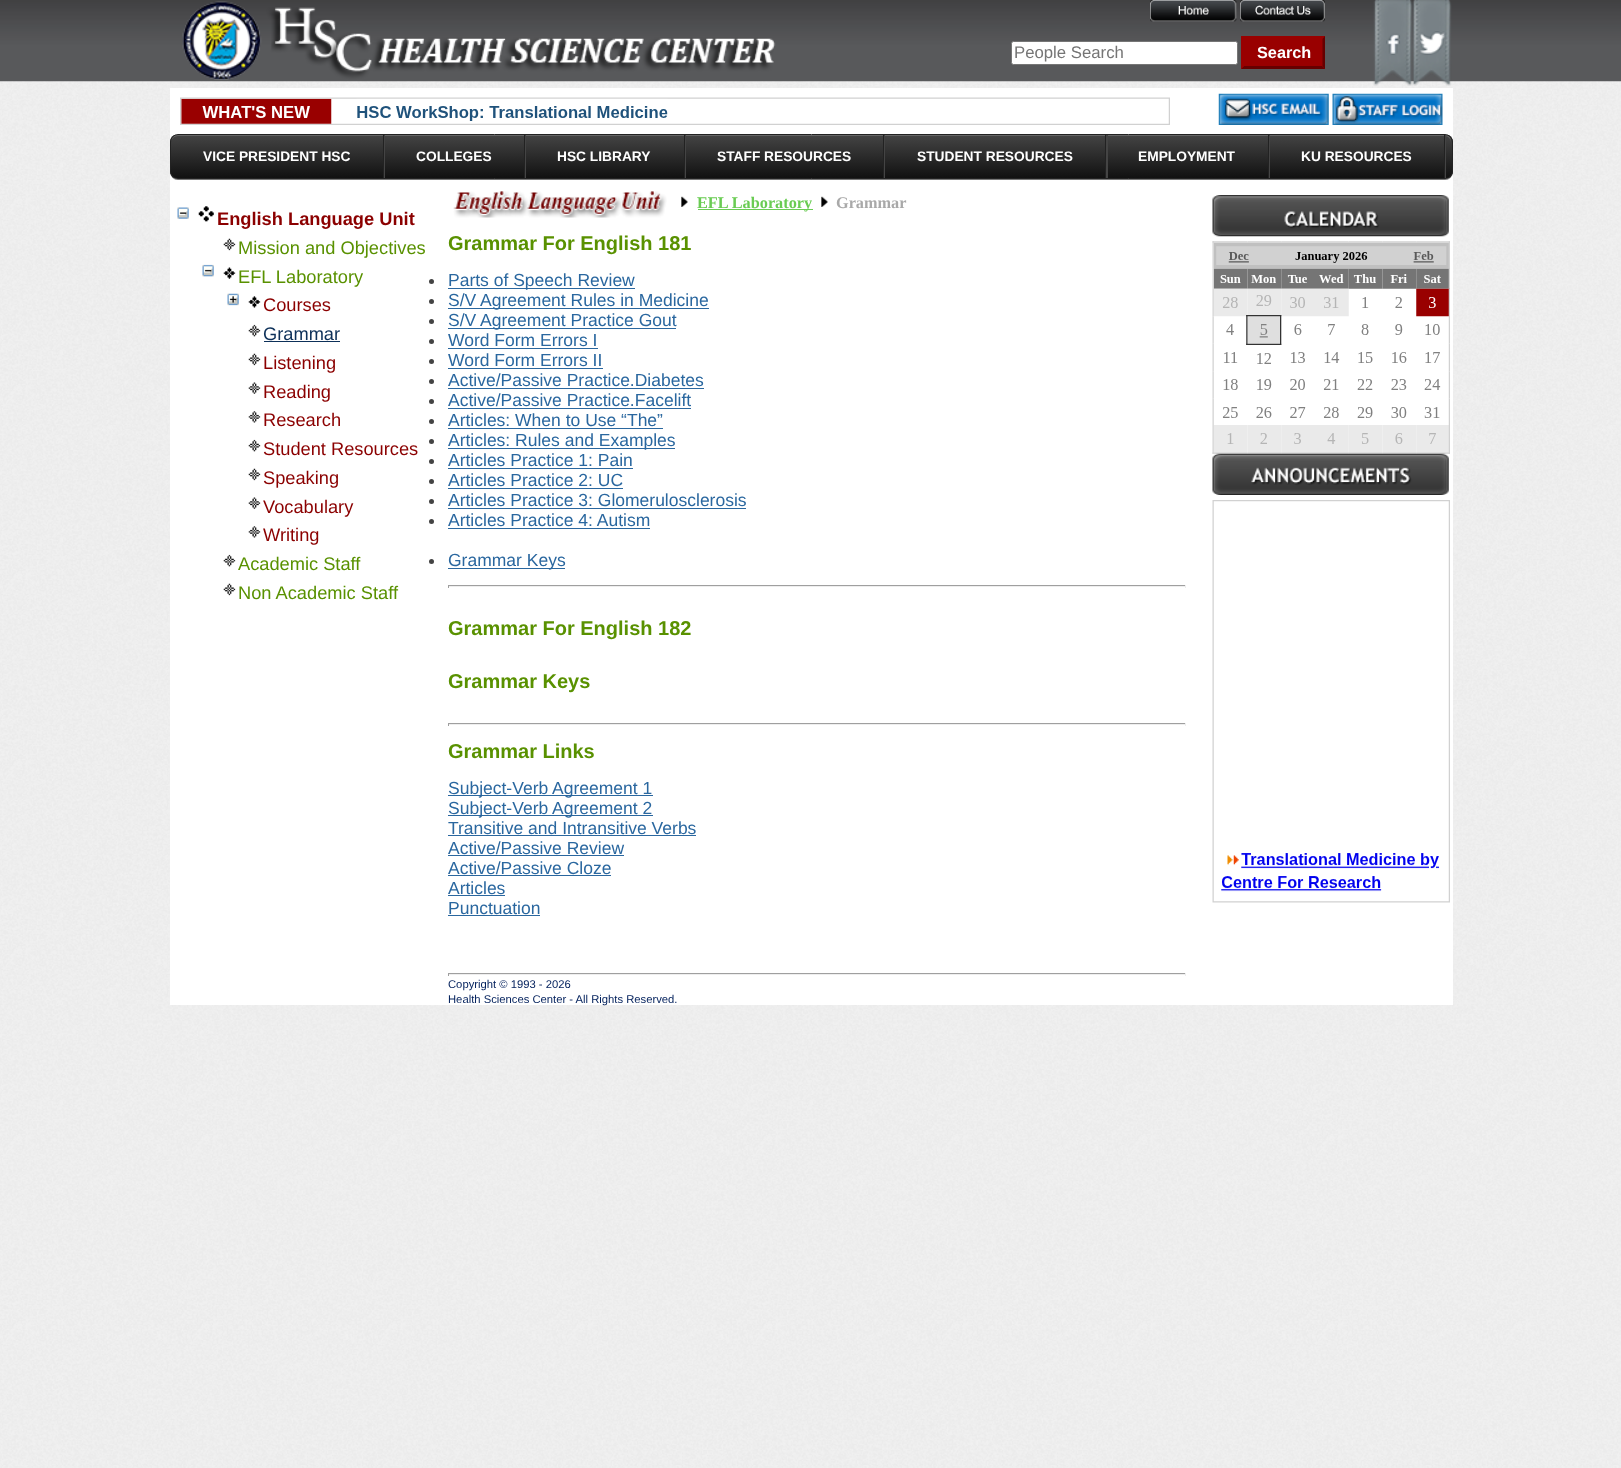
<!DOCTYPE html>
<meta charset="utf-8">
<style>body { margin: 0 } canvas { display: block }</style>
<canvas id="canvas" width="1621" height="1468"></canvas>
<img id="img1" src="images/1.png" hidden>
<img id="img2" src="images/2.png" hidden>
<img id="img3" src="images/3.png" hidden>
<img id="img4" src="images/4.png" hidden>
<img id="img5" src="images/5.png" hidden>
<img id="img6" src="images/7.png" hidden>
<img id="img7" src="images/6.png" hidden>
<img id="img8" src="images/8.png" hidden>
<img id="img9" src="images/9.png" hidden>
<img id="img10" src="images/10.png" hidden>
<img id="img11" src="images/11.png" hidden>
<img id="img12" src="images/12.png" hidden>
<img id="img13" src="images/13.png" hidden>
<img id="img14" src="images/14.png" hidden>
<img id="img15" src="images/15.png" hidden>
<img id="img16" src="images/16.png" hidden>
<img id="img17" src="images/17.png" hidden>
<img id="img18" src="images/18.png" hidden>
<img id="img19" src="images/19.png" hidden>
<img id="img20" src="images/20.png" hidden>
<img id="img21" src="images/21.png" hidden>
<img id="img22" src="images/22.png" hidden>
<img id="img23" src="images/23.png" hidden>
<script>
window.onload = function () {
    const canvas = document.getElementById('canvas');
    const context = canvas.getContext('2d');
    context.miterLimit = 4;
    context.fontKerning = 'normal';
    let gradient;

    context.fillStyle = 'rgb(255, 255, 255)';
    context.fillRect(0, 0, 1621, 1468);
    context.drawImage(document.getElementById('img1'), 0, 81, 1621, 1387);
    context.drawImage(document.getElementById('img2'), 0, 0, 1621, 82);
    context.drawImage(document.getElementById('img3'), 182, 1, 594, 79);
    context.drawImage(document.getElementById('img4'), 1150, 0, 87, 22);
    context.drawImage(document.getElementById('img5'), 1240, 0, 85, 22);
    context.beginPath();
    context.roundRect(1011.5, 41.5, 226, 23, 2);
    context.fill();
    context.strokeStyle = 'rgb(118, 118, 118)';
    context.stroke();
    context.fillStyle = 'rgb(153, 0, 0)';
    context.fillRect(1241, 36, 84, 33);
    context.fillStyle = 'rgb(102, 0, 0)';
    context.beginPath();
    context.moveTo(1325, 36);
    context.lineTo(1325, 69);
    context.lineTo(1322.5, 66);
    context.lineTo(1322.5, 39);
    context.closePath();
    context.fill();
    context.beginPath();
    context.moveTo(1325, 69);
    context.lineTo(1241, 69);
    context.lineTo(1244, 66);
    context.lineTo(1322, 66);
    context.closePath();
    context.fill();
    context.fillStyle = 'rgb(153, 0, 0)';
    context.beginPath();
    context.moveTo(1241, 69);
    context.lineTo(1241, 36);
    context.lineTo(1244, 39);
    context.lineTo(1244, 66);
    context.closePath();
    context.fill();
    context.drawImage(document.getElementById('img6'), 1412, 0, 40, 86);
    context.drawImage(document.getElementById('img7'), 1373, 0, 40, 86);
    context.fillStyle = 'rgb(255, 255, 255)';
    context.fillRect(170, 88, 1283, 917);
    context.drawImage(document.getElementById('img8'), 180, 97, 990, 28);
    context.drawImage(document.getElementById('img9'), 1218, 93, 111, 32);
    context.drawImage(document.getElementById('img10'), 1332, 93, 111, 32);
    context.fillStyle = 'rgb(119, 119, 119)';
    context.filter = 'blur(0.5px)';
    context.beginPath();
    context.roundRect(170, 135, 1283, 45, 8);
    context.fill();
    context.filter = 'none';
    context.save();
    context.beginPath();
    context.roundRect(170, 134, 1283, 45, 8);
    context.clip();
    gradient = context.createLinearGradient(811, 135, 811, 178);
    gradient.addColorStop(0, 'rgb(68, 68, 68)');
    gradient.addColorStop(1, 'rgb(17, 17, 17)');
    context.fillStyle = gradient;
    context.fillRect(170, 135, 1283, 43);
    context.restore();
    context.fillStyle = 'rgb(102, 102, 102)';
    context.beginPath();
    context.moveTo(178, 136);
    context.lineTo(1445, 136);
    context.bezierCurveTo(1448, 136, 1451, 139, 1451, 142);
    context.bezierCurveTo(1451, 138, 1449, 135, 1445, 135);
    context.lineTo(177, 135);
    context.bezierCurveTo(173, 135, 171, 138, 171, 142);
    context.bezierCurveTo(171, 139, 174, 136, 178, 136);
    context.closePath();
    context.fill();
    context.beginPath();
    context.roundRect(170.5, 134.5, 1282, 44, 7.5);
    context.strokeStyle = 'rgb(34, 34, 34)';
    context.stroke();
    context.fillStyle = 'rgb(68, 68, 68)';
    context.beginPath();
    context.moveTo(173, 178);
    context.lineTo(385, 178);
    context.lineTo(385, 135);
    context.lineTo(384, 135);
    context.lineTo(384, 178);
    context.closePath();
    context.fill();
    context.fillStyle = 'rgb(34, 34, 34)';
    context.fillRect(383, 135, 1, 43);
    context.fillStyle = 'rgb(68, 68, 68)';
    context.beginPath();
    context.moveTo(385, 178);
    context.lineTo(526, 178);
    context.lineTo(526, 135);
    context.lineTo(525, 135);
    context.lineTo(525, 178);
    context.closePath();
    context.fill();
    context.fillStyle = 'rgb(34, 34, 34)';
    context.fillRect(524, 135, 1, 43);
    context.fillStyle = 'rgb(68, 68, 68)';
    context.beginPath();
    context.moveTo(526, 178);
    context.lineTo(686, 178);
    context.lineTo(686, 135);
    context.lineTo(685, 135);
    context.lineTo(685, 178);
    context.closePath();
    context.fill();
    context.fillStyle = 'rgb(34, 34, 34)';
    context.fillRect(684, 135, 1, 43);
    context.fillStyle = 'rgb(68, 68, 68)';
    context.beginPath();
    context.moveTo(686, 178);
    context.lineTo(885, 178);
    context.lineTo(885, 135);
    context.lineTo(884, 135);
    context.lineTo(884, 178);
    context.closePath();
    context.fill();
    context.fillStyle = 'rgb(34, 34, 34)';
    context.fillRect(883, 135, 1, 43);
    context.fillStyle = 'rgb(68, 68, 68)';
    context.beginPath();
    context.moveTo(885, 178);
    context.lineTo(1108, 178);
    context.lineTo(1108, 135);
    context.lineTo(1106, 135);
    context.lineTo(1106, 178);
    context.closePath();
    context.fill();
    context.fillStyle = 'rgb(34, 34, 34)';
    context.fillRect(1105, 135, 1, 43);
    context.fillStyle = 'rgb(68, 68, 68)';
    context.beginPath();
    context.moveTo(1108, 178);
    context.lineTo(1270, 178);
    context.lineTo(1270, 135);
    context.lineTo(1269, 135);
    context.lineTo(1269, 178);
    context.closePath();
    context.fill();
    context.fillStyle = 'rgb(34, 34, 34)';
    context.fillRect(1268, 135, 1, 43);
    context.fillStyle = 'rgb(68, 68, 68)';
    context.beginPath();
    context.moveTo(1270, 178);
    context.lineTo(1446, 178);
    context.lineTo(1446, 135);
    context.lineTo(1445, 135);
    context.lineTo(1445, 178);
    context.closePath();
    context.fill();
    context.fillStyle = 'rgb(34, 34, 34)';
    context.fillRect(1444, 135, 1, 43);
    context.drawImage(document.getElementById('img11'), 177, 207, 12, 12);
    context.drawImage(document.getElementById('img12'), 198, 206, 16, 16);
    context.drawImage(document.getElementById('img13'), 223, 238, 13, 13);
    context.drawImage(document.getElementById('img14'), 202, 264, 12, 13);
    context.drawImage(document.getElementById('img15'), 223, 267, 13, 12);
    context.drawImage(document.getElementById('img16'), 227, 293, 12, 13);
    context.drawImage(document.getElementById('img17'), 248, 296, 13, 12);
    context.drawImage(document.getElementById('img18'), 248, 324, 13, 13);
    context.fillStyle = 'rgb(13, 48, 89)';
    context.fillRect(264, 341, 76, 1);
    context.drawImage(document.getElementById('img13'), 248, 353, 13, 13);
    context.drawImage(document.getElementById('img19'), 248, 382, 13, 12);
    context.drawImage(document.getElementById('img20'), 248, 411, 13, 12);
    context.drawImage(document.getElementById('img18'), 248, 439, 13, 13);
    context.drawImage(document.getElementById('img13'), 248, 468, 13, 13);
    context.drawImage(document.getElementById('img19'), 248, 497, 13, 12);
    context.drawImage(document.getElementById('img20'), 248, 526, 13, 12);
    context.drawImage(document.getElementById('img18'), 223, 554, 13, 13);
    context.drawImage(document.getElementById('img13'), 223, 583, 13, 13);
    context.drawImage(document.getElementById('img21'), 453, 191, 214, 27);
    context.drawImage(document.getElementById('img22'), 681, 196, 7, 11);
    context.fillStyle = 'rgb(106, 204, 83)';
    context.fillRect(698, 209, 115, 1);
    context.drawImage(document.getElementById('img22'), 821, 196, 7, 11);
    context.fillStyle = 'rgb(67, 67, 67)';
    context.beginPath();
    context.arc(431.5, 281.5, 2.5, 0, 2 * Math.PI);
    context.fill();
    context.fillStyle = 'rgb(42, 103, 159)';
    context.fillRect(448, 288, 187, 1);
    context.fillStyle = 'rgb(67, 67, 67)';
    context.beginPath();
    context.arc(431.5, 301.5, 2.5, 0, 2 * Math.PI);
    context.fill();
    context.fillStyle = 'rgb(42, 103, 159)';
    context.fillRect(448, 308, 261, 1);
    context.fillStyle = 'rgb(67, 67, 67)';
    context.beginPath();
    context.arc(431.5, 321.5, 2.5, 0, 2 * Math.PI);
    context.fill();
    context.fillStyle = 'rgb(42, 103, 159)';
    context.fillRect(448, 328, 228, 1);
    context.fillStyle = 'rgb(67, 67, 67)';
    context.beginPath();
    context.arc(431.5, 341.5, 2.5, 0, 2 * Math.PI);
    context.fill();
    context.fillStyle = 'rgb(42, 103, 159)';
    context.fillRect(448, 348, 150, 1);
    context.fillStyle = 'rgb(67, 67, 67)';
    context.beginPath();
    context.arc(431.5, 361.5, 2.5, 0, 2 * Math.PI);
    context.fill();
    context.fillStyle = 'rgb(42, 103, 159)';
    context.fillRect(448, 368, 155, 1);
    context.fillStyle = 'rgb(67, 67, 67)';
    context.beginPath();
    context.arc(431.5, 381.5, 2.5, 0, 2 * Math.PI);
    context.fill();
    context.fillStyle = 'rgb(42, 103, 159)';
    context.fillRect(448, 388, 256, 1);
    context.fillStyle = 'rgb(67, 67, 67)';
    context.beginPath();
    context.arc(431.5, 401.5, 2.5, 0, 2 * Math.PI);
    context.fill();
    context.fillStyle = 'rgb(42, 103, 159)';
    context.fillRect(448, 408, 243, 1);
    context.fillStyle = 'rgb(67, 67, 67)';
    context.beginPath();
    context.arc(431.5, 421.5, 2.5, 0, 2 * Math.PI);
    context.fill();
    context.fillStyle = 'rgb(42, 103, 159)';
    context.fillRect(448, 428, 215, 1);
    context.fillStyle = 'rgb(67, 67, 67)';
    context.beginPath();
    context.arc(431.5, 441.5, 2.5, 0, 2 * Math.PI);
    context.fill();
    context.fillStyle = 'rgb(42, 103, 159)';
    context.fillRect(448, 448, 227, 1);
    context.fillStyle = 'rgb(67, 67, 67)';
    context.beginPath();
    context.arc(431.5, 461.5, 2.5, 0, 2 * Math.PI);
    context.fill();
    context.fillStyle = 'rgb(42, 103, 159)';
    context.fillRect(448, 468, 185, 1);
    context.fillStyle = 'rgb(67, 67, 67)';
    context.beginPath();
    context.arc(431.5, 481.5, 2.5, 0, 2 * Math.PI);
    context.fill();
    context.fillStyle = 'rgb(42, 103, 159)';
    context.fillRect(448, 488, 175, 1);
    context.fillStyle = 'rgb(67, 67, 67)';
    context.beginPath();
    context.arc(431.5, 501.5, 2.5, 0, 2 * Math.PI);
    context.fill();
    context.fillStyle = 'rgb(42, 103, 159)';
    context.fillRect(448, 508, 298, 1);
    context.fillStyle = 'rgb(67, 67, 67)';
    context.beginPath();
    context.arc(431.5, 521.5, 2.5, 0, 2 * Math.PI);
    context.fill();
    context.fillStyle = 'rgb(42, 103, 159)';
    context.fillRect(448, 528, 202, 1);
    context.fillStyle = 'rgb(67, 67, 67)';
    context.beginPath();
    context.arc(431.5, 561.5, 2.5, 0, 2 * Math.PI);
    context.fill();
    context.fillStyle = 'rgb(42, 103, 159)';
    context.fillRect(448, 568, 117, 1);
    context.fillStyle = 'rgb(159, 159, 159)';
    context.fillRect(448, 585, 738, 1);
    context.fillStyle = 'rgb(238, 238, 238)';
    context.fillRect(1185, 585, 1, 3);
    context.fillRect(448, 586, 738, 1);
    context.fillStyle = 'rgb(159, 159, 159)';
    context.fillRect(448, 585, 1, 3);
    context.fillRect(448, 723, 738, 1);
    context.fillStyle = 'rgb(238, 238, 238)';
    context.fillRect(1185, 723, 1, 3);
    context.fillRect(448, 724, 738, 1);
    context.fillStyle = 'rgb(159, 159, 159)';
    context.fillRect(448, 723, 1, 3);
    context.fillStyle = 'rgb(42, 103, 159)';
    context.fillRect(448, 795, 205, 1);
    context.fillRect(448, 815, 205, 1);
    context.fillRect(448, 835, 248, 1);
    context.fillRect(448, 855, 176, 1);
    context.fillRect(448, 875, 163, 1);
    context.fillRect(448, 895, 57, 1);
    context.fillRect(448, 915, 92, 1);
    context.drawImage(document.getElementById('img23'), 1212, 195, 238, 708);
    context.fillStyle = 'rgb(159, 159, 159)';
    context.fillRect(448, 973, 738, 1);
    context.fillStyle = 'rgb(238, 238, 238)';
    context.fillRect(1185, 973, 1, 3);
    context.fillRect(448, 974, 738, 1);
    context.fillStyle = 'rgb(159, 159, 159)';
    context.fillRect(448, 973, 1, 3);
    context.font = '16.75px Liberation Sans';
    context.fillStyle = 'rgb(117, 117, 117)';
    context.fillText('People Search', 1014, 58);
    context.font = 'bold 16.25px Liberation Sans';
    context.fillStyle = 'rgb(255, 255, 255)';
    context.fillText('Search', 1257, 58);
    context.font = 'bold 13.75px Liberation Sans';
    context.fillText('VICE PRESIDENT HSC', 203, 161);
    context.fillText('COLLEGES', 416, 161);
    context.fillText('HSC LIBRARY', 557, 161);
    context.fillText('STAFF RESOURCES', 717, 161);
    context.fillText('STUDENT RESOURCES', 917, 161);
    context.fillText('EMPLOYMENT', 1138, 161);
    context.fillText('KU RESOURCES', 1301, 161);
    context.font = 'bold 18.25px Liberation Sans';
    context.fillStyle = 'rgb(139, 0, 0)';
    context.fillText('English Language Unit', 217, 225);
    context.font = '18.25px Liberation Sans';
    context.fillStyle = 'rgb(89, 145, 0)';
    context.fillText('Mission and Objectives', 238, 254);
    context.fillText('EFL Laboratory', 238, 283);
    context.fillStyle = 'rgb(139, 0, 0)';
    context.fillText('Courses', 263, 311);
    context.fillStyle = 'rgb(13, 48, 89)';
    context.fillText('Grammar', 263, 340);
    context.fillStyle = 'rgb(139, 0, 0)';
    context.fillText('Listening', 263, 369);
    context.fillText('Reading', 263, 398);
    context.fillText('Research', 263, 426);
    context.fillText('Student Resources', 263, 455);
    context.fillText('Speaking', 263, 484);
    context.fillText('Vocabulary', 263, 513);
    context.fillText('Writing', 263, 541);
    context.fillStyle = 'rgb(89, 145, 0)';
    context.fillText('Academic Staff', 238, 570);
    context.fillText('Non Academic Staff', 238, 599);
    context.font = 'bold 16.25px Liberation Serif';
    context.fillStyle = 'rgb(106, 204, 83)';
    context.fillText('EFL Laboratory', 697, 208);
    context.fillStyle = 'rgb(169, 169, 169)';
    context.fillText('Grammar', 836, 208);
    context.font = 'bold 20px Liberation Sans';
    context.fillStyle = 'rgb(89, 145, 0)';
    context.fillText('Grammar For English 181', 448, 250);
    context.font = '17.5px Liberation Sans';
    context.fillStyle = 'rgb(42, 103, 159)';
    context.fillText('Parts of Speech Review', 448, 286);
    context.fillText('S/V Agreement Rules in Medicine', 448, 306);
    context.fillText('S/V Agreement Practice Gout', 448, 326);
    context.fillText('Word Form Errors I', 448, 346);
    context.fillText('Word Form Errors II', 448, 366);
    context.fillText('Active/Passive Practice.Diabetes', 448, 386);
    context.fillText('Active/Passive Practice.Facelift', 448, 406);
    context.fillText('Articles: When to Use “The”', 448, 426);
    context.fillText('Articles: Rules and Examples', 448, 446);
    context.fillText('Articles Practice 1: Pain', 448, 466);
    context.fillText('Articles Practice 2: UC', 448, 486);
    context.fillText('Articles Practice 3: Glomerulosclerosis', 448, 506);
    context.fillText('Articles Practice 4: Autism', 448, 526);
    context.fillText('Grammar Keys', 448, 566);
    context.font = 'bold 20px Liberation Sans';
    context.fillStyle = 'rgb(89, 145, 0)';
    context.fillText('Grammar For English 182', 448, 635);
    context.fillText('Grammar Keys', 448, 688);
    context.fillText('Grammar Links', 448, 758);
    context.font = '17.5px Liberation Sans';
    context.fillStyle = 'rgb(42, 103, 159)';
    context.fillText('Subject-Verb Agreement 1', 448, 794);
    context.fillText('Subject-Verb Agreement 2', 448, 814);
    context.fillText('Transitive and Intransitive Verbs', 448, 834);
    context.fillText('Active/Passive Review', 448, 854);
    context.fillText('Active/Passive Cloze', 448, 874);
    context.fillText('Articles', 448, 894);
    context.fillText('Punctuation', 448, 914);
    context.font = '11.25px Liberation Sans';
    context.fillStyle = 'rgb(1, 31, 91)';
    context.fillText('Copyright © 1993 - 2026', 448, 988);
    context.fillText('Health Sciences Center - All Rights Reserved.', 448, 1003);
};
</script>
